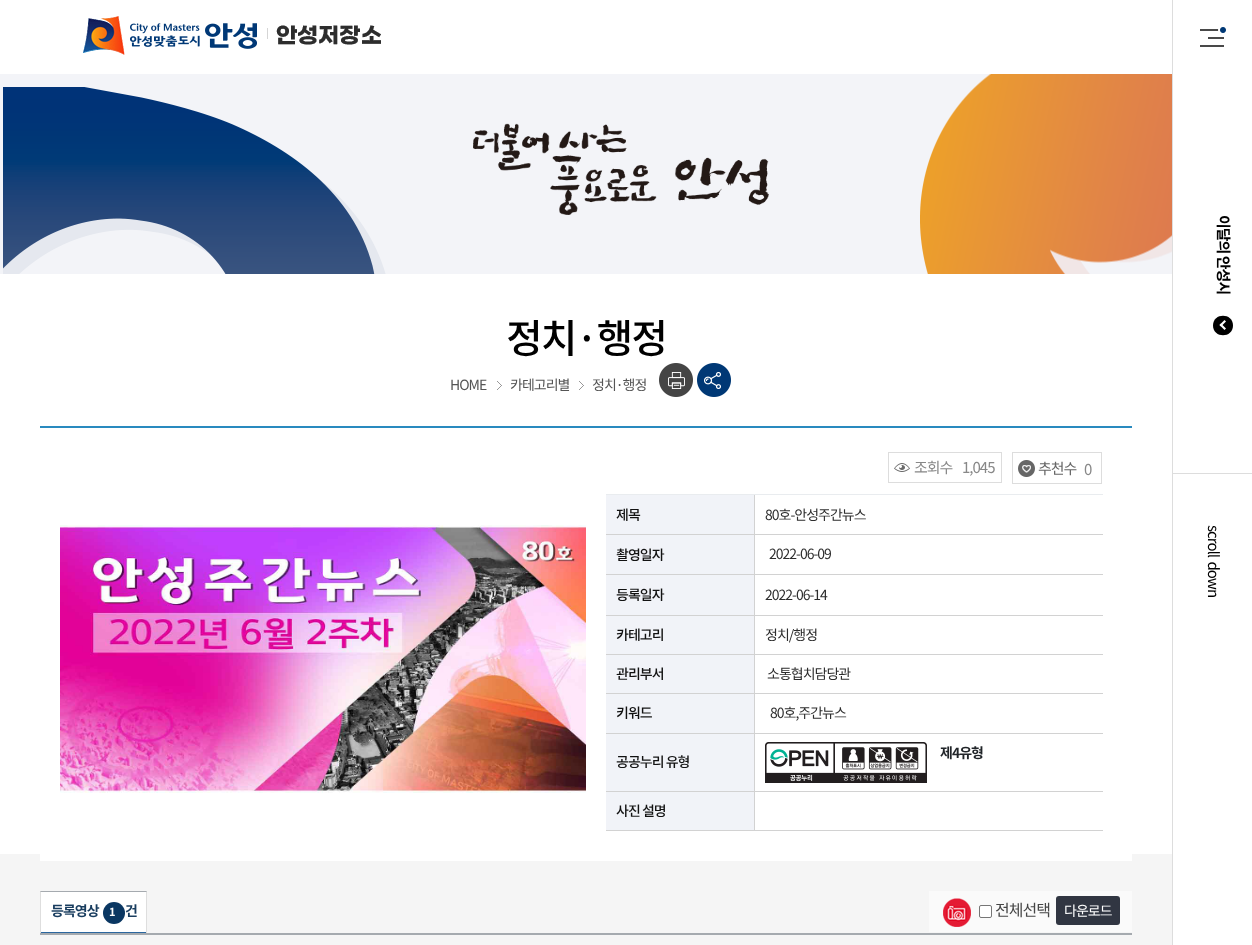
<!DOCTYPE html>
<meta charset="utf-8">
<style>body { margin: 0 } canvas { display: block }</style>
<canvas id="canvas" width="1252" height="945"></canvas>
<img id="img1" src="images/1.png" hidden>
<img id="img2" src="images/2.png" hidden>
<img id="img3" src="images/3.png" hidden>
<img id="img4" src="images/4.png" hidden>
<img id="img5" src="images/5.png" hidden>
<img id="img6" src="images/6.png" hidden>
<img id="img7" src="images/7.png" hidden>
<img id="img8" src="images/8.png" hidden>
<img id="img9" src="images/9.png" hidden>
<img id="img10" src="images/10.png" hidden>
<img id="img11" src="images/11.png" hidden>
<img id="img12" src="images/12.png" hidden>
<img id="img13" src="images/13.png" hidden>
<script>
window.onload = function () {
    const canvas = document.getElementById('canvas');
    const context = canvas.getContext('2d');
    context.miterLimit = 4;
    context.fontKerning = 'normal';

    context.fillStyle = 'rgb(255, 255, 255)';
    context.fillRect(0, 0, 1252, 945);
    context.drawImage(document.getElementById('img1'), 83, 16, 298, 39);
    context.drawImage(document.getElementById('img2'), 1200, 27, 26, 20);
    context.fillStyle = 'rgb(243, 244, 248)';
    context.fillRect(0, 74, 1172, 200);
    context.drawImage(document.getElementById('img3'), 3, 87, 383, 187);
    context.drawImage(document.getElementById('img4'), 473, 123, 296, 92);
    context.drawImage(document.getElementById('img5'), 920, 74, 252, 200);
    context.drawImage(document.getElementById('img6'), 497, 381, 5, 9);
    context.drawImage(document.getElementById('img6'), 579, 381, 5, 9);
    context.drawImage(document.getElementById('img7'), 659, 363, 34, 34);
    context.drawImage(document.getElementById('img8'), 697, 363, 34, 34);
    context.fillStyle = 'rgb(245, 245, 245)';
    context.fillRect(0, 854, 1172, 91);
    context.fillStyle = 'rgb(255, 255, 255)';
    context.fillRect(40, 854, 1092, 7);
    context.fillStyle = 'rgb(41, 138, 191)';
    context.fillRect(40, 426, 1092, 2);
    context.drawImage(document.getElementById('img9'), 60, 525, 526, 268);
    context.strokeStyle = 'rgb(221, 221, 221)';
    context.strokeRect(888.5, 452.5, 113, 30);
    context.drawImage(document.getElementById('img10'), 894, 463, 16, 9);
    context.strokeRect(1012.5, 452.5, 89, 31);
    context.drawImage(document.getElementById('img11'), 1018, 460, 17, 17);
    context.fillStyle = 'rgb(241, 243, 248)';
    context.fillRect(606, 495, 148, 39);
    context.fillStyle = 'rgb(233, 236, 239)';
    context.fillRect(754, 494, 349, 1);
    context.fillStyle = 'rgb(210, 210, 210)';
    context.fillRect(754, 830, 349, 1);
    context.fillRect(754, 791, 1, 40);
    context.fillRect(754, 791, 349, 1);
    context.fillRect(754, 733, 1, 59);
    context.fillRect(754, 733, 349, 1);
    context.fillRect(754, 693, 1, 41);
    context.fillRect(754, 693, 349, 1);
    context.fillRect(754, 654, 1, 40);
    context.fillRect(754, 654, 349, 1);
    context.fillRect(754, 615, 1, 40);
    context.fillRect(754, 615, 349, 1);
    context.fillRect(754, 574, 1, 42);
    context.fillRect(754, 574, 349, 1);
    context.fillRect(754, 534, 1, 41);
    context.fillRect(754, 534, 349, 1);
    context.fillRect(754, 494, 1, 41);
    context.fillStyle = 'rgb(233, 236, 239)';
    context.fillRect(606, 494, 149, 1);
    context.fillStyle = 'rgb(210, 210, 210)';
    context.fillRect(606, 534, 149, 1);
    context.fillStyle = 'rgb(241, 243, 248)';
    context.fillRect(606, 535, 148, 39);
    context.fillStyle = 'rgb(210, 210, 210)';
    context.fillRect(606, 574, 149, 1);
    context.fillStyle = 'rgb(241, 243, 248)';
    context.fillRect(606, 575, 148, 40);
    context.fillStyle = 'rgb(210, 210, 210)';
    context.fillRect(606, 615, 149, 1);
    context.fillStyle = 'rgb(241, 243, 248)';
    context.fillRect(606, 616, 148, 38);
    context.fillStyle = 'rgb(210, 210, 210)';
    context.fillRect(606, 654, 149, 1);
    context.fillStyle = 'rgb(241, 243, 248)';
    context.fillRect(606, 655, 148, 38);
    context.fillStyle = 'rgb(210, 210, 210)';
    context.fillRect(606, 693, 149, 1);
    context.fillStyle = 'rgb(241, 243, 248)';
    context.fillRect(606, 694, 148, 39);
    context.fillStyle = 'rgb(210, 210, 210)';
    context.fillRect(606, 733, 149, 1);
    context.drawImage(document.getElementById('img12'), 765, 742, 162, 41);
    context.fillStyle = 'rgb(241, 243, 248)';
    context.fillRect(606, 734, 148, 57);
    context.fillStyle = 'rgb(210, 210, 210)';
    context.fillRect(606, 791, 149, 1);
    context.fillStyle = 'rgb(241, 243, 248)';
    context.fillRect(606, 792, 148, 38);
    context.fillStyle = 'rgb(210, 210, 210)';
    context.fillRect(606, 830, 149, 1);
    context.fillStyle = 'rgb(165, 170, 175)';
    context.fillRect(40, 933, 1092, 2);
    context.fillRect(40, 891, 107, 1);
    context.save();
    context.beginPath();
    context.rect(40, 891, 1092, 42);
    context.clip();
    context.fillStyle = 'rgb(222, 222, 222)';
    context.beginPath();
    context.moveTo(147, 891);
    context.lineTo(147, 936);
    context.lineTo(146, 934);
    context.lineTo(146, 892);
    context.closePath();
    context.fill();
    context.beginPath();
    context.moveTo(40, 936);
    context.lineTo(40, 891);
    context.lineTo(41, 892);
    context.lineTo(41, 934);
    context.closePath();
    context.fill();
    context.restore();
    context.fillStyle = 'rgb(255, 255, 255)';
    context.fillRect(41, 892, 105, 40);
    context.fillStyle = 'rgb(43, 103, 159)';
    context.fillRect(41, 932, 105, 1);
    context.fillStyle = 'rgb(10, 55, 98)';
    context.beginPath();
    context.arc(114, 913, 11, 0, 2 * Math.PI);
    context.fill();
    context.fillStyle = 'rgb(250, 250, 250)';
    context.fillRect(929, 891, 203, 41);
    context.drawImage(document.getElementById('img13'), 943, 898, 28, 29);
    context.fillStyle = 'rgb(255, 255, 255)';
    context.beginPath();
    context.roundRect(979.5, 905.5, 12, 12, 1.5);
    context.fill();
    context.strokeStyle = 'rgb(118, 118, 118)';
    context.stroke();
    context.fillStyle = 'rgb(49, 54, 66)';
    context.beginPath();
    context.roundRect(1056, 896, 64, 29, 3);
    context.fill();
    context.fillStyle = 'rgb(221, 221, 221)';
    context.fillRect(1172, 0, 1, 945);
    context.fillRect(1173, 473, 79, 1);
    context.fillStyle = 'rgb(0, 0, 0)';
    context.beginPath();
    context.moveTo(1233, 325.5);
    context.bezierCurveTo(1233, 338.5, 1213, 338.5, 1213, 325.5);
    context.bezierCurveTo(1213, 312.5, 1233, 312.5, 1233, 325.5);
    context.closePath();
    context.fill();
    context.fillStyle = 'rgb(255, 255, 255)';
    context.beginPath();
    context.moveTo(1224.5, 330);
    context.lineTo(1219.5, 325);
    context.lineTo(1221, 323.5);
    context.lineTo(1226, 328.5);
    context.closePath();
    context.fill();
    context.beginPath();
    context.moveTo(1221, 326.5);
    context.lineTo(1219.5, 325);
    context.lineTo(1224.5, 320);
    context.lineTo(1226, 321.5);
    context.closePath();
    context.fill();
    context.letterSpacing = '-2px';
    context.font = '500 40px Noto Sans KR';
    context.fillStyle = 'rgb(0, 0, 0)';
    context.fillText('정치·행정', 506, 353);
    context.letterSpacing = '-1px';
    context.font = '14px Noto Sans KR';
    context.fillStyle = 'rgb(85, 85, 85)';
    context.fillText('HOME', 450, 390);
    context.fillText('카테고리별', 510, 390);
    context.fillText('정치·행정', 592, 390);
    context.font = '15px Noto Sans KR';
    context.fillStyle = 'rgb(136, 136, 136)';
    context.fillText('조회수', 914, 473);
    context.fillText('1,045', 962, 473);
    context.fillStyle = 'rgb(102, 102, 102)';
    context.fillText('추천수', 1038, 474);
    context.fillStyle = 'rgb(136, 136, 136)';
    context.fillText('0', 1084, 475);
    context.font = '500 14px Noto Sans KR';
    context.fillStyle = 'rgb(18, 18, 18)';
    context.fillText('제목', 616, 520);
    context.font = '14px Noto Sans KR';
    context.fillStyle = 'rgb(45, 45, 45)';
    context.fillText('80호-안성주간뉴스', 765, 520);
    context.font = '500 14px Noto Sans KR';
    context.fillStyle = 'rgb(18, 18, 18)';
    context.fillText('촬영일자', 616, 560);
    context.font = '14px Noto Sans KR';
    context.fillStyle = 'rgb(45, 45, 45)';
    context.fillText('2022-06-09', 769, 559);
    context.font = '500 14px Noto Sans KR';
    context.fillStyle = 'rgb(18, 18, 18)';
    context.fillText('등록일자', 616, 600);
    context.font = '14px Noto Sans KR';
    context.fillStyle = 'rgb(45, 45, 45)';
    context.fillText('2022-06-14', 765, 600);
    context.font = '500 14px Noto Sans KR';
    context.fillStyle = 'rgb(18, 18, 18)';
    context.fillText('카테고리', 616, 640);
    context.font = '14px Noto Sans KR';
    context.fillStyle = 'rgb(45, 45, 45)';
    context.fillText('정치/행정', 765, 640);
    context.font = '500 14px Noto Sans KR';
    context.fillStyle = 'rgb(18, 18, 18)';
    context.fillText('관리부서', 616, 679);
    context.font = '14px Noto Sans KR';
    context.fillStyle = 'rgb(45, 45, 45)';
    context.fillText('소통협치담당관', 767, 679);
    context.font = '500 14px Noto Sans KR';
    context.fillStyle = 'rgb(18, 18, 18)';
    context.fillText('키워드', 616, 718);
    context.font = '14px Noto Sans KR';
    context.fillStyle = 'rgb(45, 45, 45)';
    context.fillText('80호,주간뉴스', 770, 718);
    context.font = 'bold 14px Noto Sans KR';
    context.fillStyle = 'rgb(33, 37, 41)';
    context.fillText('제4유형', 940, 758);
    context.font = '500 14px Noto Sans KR';
    context.fillStyle = 'rgb(18, 18, 18)';
    context.fillText('공공누리 유형', 616, 767);
    context.fillText('사진 설명', 616, 816);
    context.font = 'bold 14px Noto Sans KR';
    context.fillStyle = 'rgb(25, 61, 95)';
    context.fillText('등록영상', 51, 916);
    context.letterSpacing = '2px';
    context.font = 'bold 11px Noto Sans KR';
    context.fillStyle = 'rgb(255, 255, 255)';
    context.fillText('1', 109, 916);
    context.letterSpacing = '-1px';
    context.font = 'bold 14px Noto Sans KR';
    context.fillStyle = 'rgb(25, 61, 95)';
    context.fillText('건', 125, 916);
    context.font = '16px Noto Sans KR';
    context.fillStyle = 'rgb(70, 70, 70)';
    context.fillText('전체선택', 995, 916);
    context.font = '14px Noto Sans KR';
    context.fillStyle = 'rgb(255, 255, 255)';
    context.fillText('다운로드', 1064, 916);
    context.font = 'bold 15px Noto Sans KR';
    context.fillStyle = 'rgb(0, 0, 0)';
    context.save();
    context.translate(1218, 215);
    context.rotate(90.1 * Math.PI / 180);
    context.fillText('이달의 안성시', 0, 0);
    context.restore();
    context.wordSpacing = '2px';
    context.font = '15px Noto Sans KR';
    context.save();
    context.translate(1208, 525);
    context.rotate(90.1 * Math.PI / 180);
    context.fillText('scroll down', 0, 0);
    context.restore();
};
</script>
